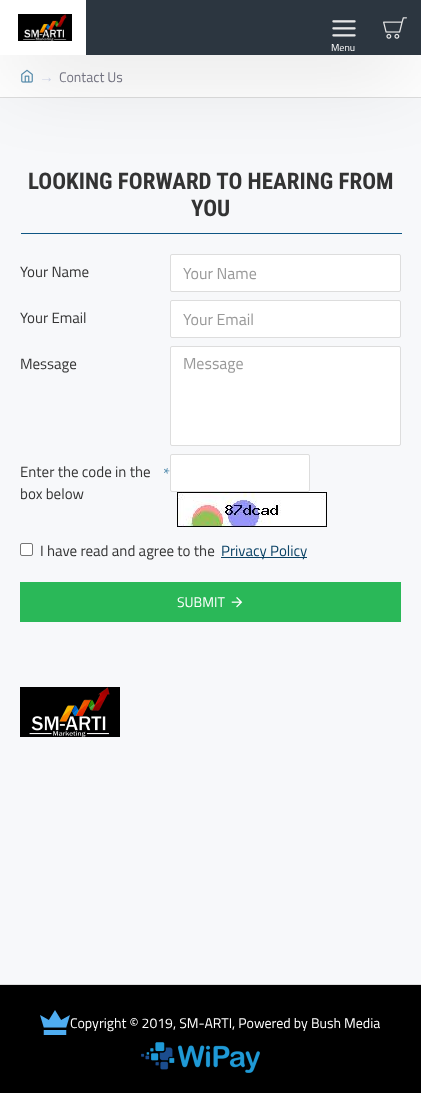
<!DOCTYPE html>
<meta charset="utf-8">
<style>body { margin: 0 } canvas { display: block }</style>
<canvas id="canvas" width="421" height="1093"></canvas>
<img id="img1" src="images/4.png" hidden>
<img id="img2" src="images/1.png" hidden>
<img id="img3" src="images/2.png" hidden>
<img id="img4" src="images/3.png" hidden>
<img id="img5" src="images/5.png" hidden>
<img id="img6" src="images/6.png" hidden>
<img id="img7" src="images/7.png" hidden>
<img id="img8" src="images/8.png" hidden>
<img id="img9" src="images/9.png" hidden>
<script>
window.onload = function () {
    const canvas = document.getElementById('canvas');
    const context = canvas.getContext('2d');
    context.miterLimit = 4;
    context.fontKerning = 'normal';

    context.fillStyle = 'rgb(247, 248, 250)';
    context.fillRect(0, 0, 421, 1093);
    context.fillStyle = 'rgb(255, 255, 255)';
    context.fillRect(0, 55, 421, 42);
    context.fillStyle = 'rgb(221, 221, 221)';
    context.fillRect(0, 97, 421, 1);
    context.drawImage(document.getElementById('img1'), 21, 69, 12, 14);
    context.fillStyle = 'rgba(0, 0, 0, 0.2)';
    context.filter = 'blur(45px)';
    context.beginPath();
    context.rect(10, 25, 401, 35);
    context.fill();
    context.filter = 'none';
    context.fillStyle = 'rgb(44, 54, 64)';
    context.fillRect(86, 0, 335, 55);
    context.fillStyle = 'rgb(255, 255, 255)';
    context.fillRect(0, 0, 86, 55);
    context.drawImage(document.getElementById('img2'), 18, 14, 54, 27);
    context.drawImage(document.getElementById('img3'), 383, 17, 24, 22);
    context.drawImage(document.getElementById('img4'), 332, 20, 24, 17);
    context.fillStyle = 'rgb(15, 86, 132)';
    context.fillRect(21, 233, 381, 1);
    context.fillStyle = 'rgb(255, 255, 255)';
    context.beginPath();
    context.roundRect(170.5, 254.5, 230, 37, 1.5);
    context.fill();
    context.strokeStyle = 'rgb(221, 221, 221)';
    context.stroke();
    context.beginPath();
    context.roundRect(170.5, 300.5, 230, 37, 1.5);
    context.fill();
    context.stroke();
    context.beginPath();
    context.roundRect(170.5, 346.5, 230, 99, 1.5);
    context.fill();
    context.stroke();
    context.beginPath();
    context.roundRect(170.5, 454.5, 139, 37, 1.5);
    context.fill();
    context.stroke();
    context.drawImage(document.getElementById('img5'), 177, 492, 150, 35);
    context.beginPath();
    context.roundRect(20.5, 543.5, 12, 12, 1.5);
    context.fill();
    context.strokeStyle = 'rgb(118, 118, 118)';
    context.stroke();
    context.fillStyle = 'rgb(10, 66, 101)';
    context.fillRect(221, 557, 86, 1);
    context.fillStyle = 'rgb(42, 184, 88)';
    context.fillRect(20, 582, 381, 40);
    context.drawImage(document.getElementById('img6'), 231, 597, 12, 11);
    context.drawImage(document.getElementById('img7'), 20, 687, 100, 50);
    context.fillStyle = 'rgb(0, 0, 0)';
    context.fillRect(0, 985, 421, 108);
    context.fillStyle = 'rgb(221, 221, 221)';
    context.fillRect(0, 984, 421, 1);
    context.drawImage(document.getElementById('img8'), 40, 1010, 30, 25);
    context.drawImage(document.getElementById('img9'), 141, 1042, 119, 31);
    context.font = '10px Titillium Web';
    context.fillStyle = 'rgb(255, 255, 255)';
    context.fillText('Menu', 331, 51);
    context.font = '15px Liberation Serif';
    context.fillStyle = 'rgb(203, 209, 227)';
    context.fillText('→', 39, 82);
    context.font = '14px Titillium Web';
    context.fillStyle = 'rgb(115, 115, 129)';
    context.fillText('Contact Us', 59, 82);
    context.font = 'bold 23px Roboto Condensed';
    context.fillStyle = 'rgb(51, 51, 51)';
    context.fillText('LOOKING FORWARD TO HEARING FROM', 28, 189);
    context.fillText('YOU', 191, 216);
    context.font = '15px Titillium Web';
    context.fillText('Your Name', 20, 277);
    context.font = '16px Titillium Web';
    context.fillStyle = 'rgb(153, 153, 153)';
    context.fillText('Your Name', 183, 279);
    context.font = '15px Titillium Web';
    context.fillStyle = 'rgb(51, 51, 51)';
    context.fillText('Your Email', 20, 323);
    context.font = '16px Titillium Web';
    context.fillStyle = 'rgb(153, 153, 153)';
    context.fillText('Your Email', 183, 325);
    context.font = '15px Titillium Web';
    context.fillStyle = 'rgb(51, 51, 51)';
    context.fillText('Message', 20, 369);
    context.font = '16px Titillium Web';
    context.fillStyle = 'rgb(153, 153, 153)';
    context.fillText('Message', 183, 369);
    context.font = '15px Titillium Web';
    context.fillStyle = 'rgb(51, 51, 51)';
    context.fillText('Enter the code in the', 20, 477);
    context.font = '17px Titillium Web';
    context.fillStyle = 'rgb(86, 142, 175)';
    context.fillText('*', 163, 480);
    context.font = '15px Titillium Web';
    context.fillStyle = 'rgb(51, 51, 51)';
    context.fillText('box below', 20, 499);
    context.fillText('I have read and agree to the', 40, 556);
    context.fillStyle = 'rgb(10, 66, 101)';
    context.fillText('Privacy Policy', 221, 556);
    context.font = '14px Titillium Web';
    context.fillStyle = 'rgb(255, 255, 255)';
    context.fillText('SUBMIT', 177, 607);
    context.fillText('Copyright © 2019, SM-ARTI, Powered by Bush Media', 70, 1028);
};
</script>
